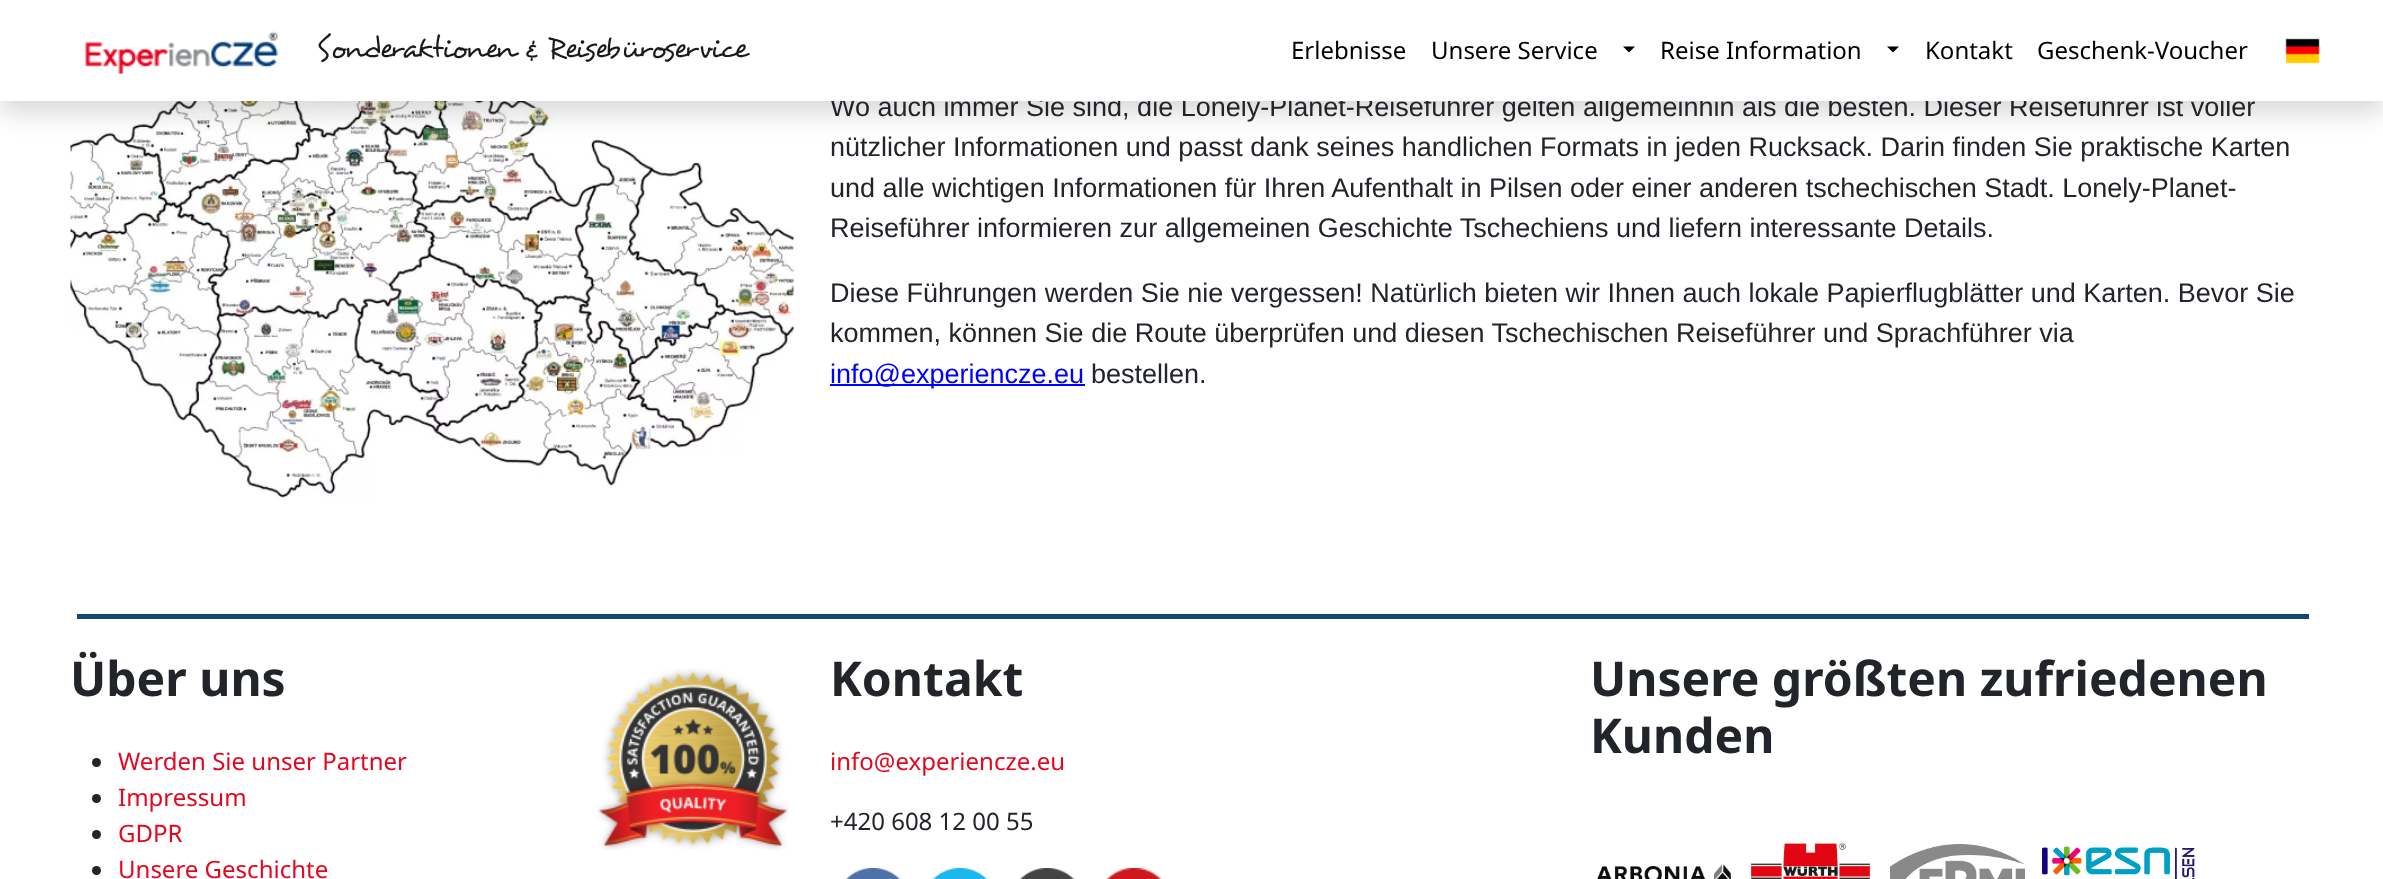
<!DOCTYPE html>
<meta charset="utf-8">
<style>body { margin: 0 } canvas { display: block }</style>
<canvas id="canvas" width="2383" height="879"></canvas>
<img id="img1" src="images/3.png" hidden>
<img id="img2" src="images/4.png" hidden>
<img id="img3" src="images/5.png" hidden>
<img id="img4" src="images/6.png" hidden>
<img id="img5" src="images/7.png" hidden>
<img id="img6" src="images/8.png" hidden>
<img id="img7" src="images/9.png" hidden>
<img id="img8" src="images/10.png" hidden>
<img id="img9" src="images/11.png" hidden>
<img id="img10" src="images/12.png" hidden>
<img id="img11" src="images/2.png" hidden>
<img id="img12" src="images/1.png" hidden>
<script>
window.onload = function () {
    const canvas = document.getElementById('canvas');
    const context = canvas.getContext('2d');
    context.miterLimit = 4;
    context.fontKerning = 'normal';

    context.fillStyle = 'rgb(255, 255, 255)';
    context.fillRect(0, 0, 2383, 879);
    context.drawImage(document.getElementById('img1'), 70, 101, 724, 400);
    context.fillStyle = 'rgba(0, 0, 0, 0.15)';
    context.filter = 'blur(12px)';
    context.beginPath();
    context.rect(0, 12, 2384, 101);
    context.fill();
    context.filter = 'none';
    context.fillStyle = 'rgb(0, 0, 255)';
    context.fillRect(830, 384, 255, 2);
    context.fillStyle = 'rgb(20, 70, 120)';
    context.fillRect(77, 614, 2232, 5);
    context.fillStyle = 'rgb(33, 37, 41)';
    context.beginPath();
    context.arc(96.5, 762.5, 4.5, 0, 2 * Math.PI);
    context.fill();
    context.beginPath();
    context.arc(96.5, 798.5, 4.5, 0, 2 * Math.PI);
    context.fill();
    context.beginPath();
    context.arc(96.5, 834.5, 4.5, 0, 2 * Math.PI);
    context.fill();
    context.beginPath();
    context.arc(96.5, 870.5, 4.5, 0, 2 * Math.PI);
    context.fill();
    context.drawImage(document.getElementById('img2'), 597, 668, 192, 182);
    context.drawImage(document.getElementById('img3'), 846, 868, 55, 11);
    context.drawImage(document.getElementById('img4'), 933, 868, 55, 11);
    context.drawImage(document.getElementById('img5'), 1020, 868, 55, 11);
    context.drawImage(document.getElementById('img6'), 1106, 868, 56, 11);
    context.drawImage(document.getElementById('img7'), 1597, 864, 134, 15);
    context.drawImage(document.getElementById('img8'), 1751, 843, 119, 36);
    context.drawImage(document.getElementById('img9'), 1890, 844, 135, 35);
    context.drawImage(document.getElementById('img10'), 2041, 846, 154, 33);
    context.font = '27px Liberation Sans';
    context.fillText('Wo auch immer Sie sind, die Lonely-Planet-Reiseführer gelten allgemeinhin als die besten. Dieser Reiseführer ist voller', 830, 116);
    context.fillStyle = 'rgb(255, 255, 255)';
    context.fillRect(0, 0, 2383, 101);
    context.drawImage(document.getElementById('img11'), 2285, 38, 35, 26);
    context.fillStyle = 'rgb(0, 0, 0)';
    context.beginPath();
    context.moveTo(1887, 46.5);
    context.lineTo(1899, 46.5);
    context.lineTo(1893, 52.5);
    context.closePath();
    context.fill();
    context.font = '24px Noto Sans';
    context.fillText('Reise Information', 1660, 59);
    context.beginPath();
    context.moveTo(1623, 46.5);
    context.lineTo(1635, 46.5);
    context.lineTo(1629, 52.5);
    context.closePath();
    context.fill();
    context.fillText('Unsere Service', 1431, 59);
    context.fillText('Geschenk-Voucher', 2037, 59);
    context.fillText('Kontakt', 1925, 59);
    context.fillText('Erlebnisse', 1291, 59);
    context.font = '30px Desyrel';
    context.fillStyle = 'rgb(26, 26, 26)';
    context.fillText('Sonderaktionen & Reisebüroservice', 316, 56);
    context.drawImage(document.getElementById('img12'), 85, 31, 193, 44);
    context.font = '27px Liberation Sans';
    context.fillStyle = 'rgb(33, 37, 41)';
    context.fillText('nützlicher Informationen und passt dank seines handlichen Formats in jeden Rucksack. Darin finden Sie praktische Karten', 830, 156);
    context.fillText('und alle wichtigen Informationen für Ihren Aufenthalt in Pilsen oder einer anderen tschechischen Stadt. Lonely-Planet-', 830, 197);
    context.fillText('Reiseführer informieren zur allgemeinen Geschichte Tschechiens und liefern interessante Details.', 830, 237);
    context.fillText('Diese Führungen werden Sie nie vergessen! Natürlich bieten wir Ihnen auch lokale Papierflugblätter und Karten. Bevor Sie', 830, 302);
    context.fillText('kommen, können Sie die Route überprüfen und diesen Tschechischen Reiseführer und Sprachführer via', 830, 342);
    context.fillStyle = 'rgb(0, 0, 255)';
    context.fillText('info@experiencze.eu', 830, 383);
    context.fillStyle = 'rgb(33, 37, 41)';
    context.fillText('bestellen.', 1091, 383);
    context.font = 'bold 48px Noto Sans';
    context.fillText('Über uns', 70, 696);
    context.font = '24px Noto Sans';
    context.fillStyle = 'rgb(227, 8, 31)';
    context.fillText('Werden Sie unser Partner', 118, 770);
    context.fillText('Impressum', 118, 806);
    context.fillText('GDPR', 118, 842);
    context.fillText('Unsere Geschichte', 118, 878);
    context.font = 'bold 48px Noto Sans';
    context.fillStyle = 'rgb(33, 37, 41)';
    context.fillText('Kontakt', 830, 696);
    context.font = '24px Noto Sans';
    context.fillStyle = 'rgb(227, 8, 31)';
    context.fillText('info@experiencze.eu', 830, 770);
    context.fillStyle = 'rgb(33, 37, 41)';
    context.fillText('+420 608 12 00 55', 830, 830);
    context.font = 'bold 48px Noto Sans';
    context.fillText('Unsere größten zufriedenen', 1590, 696);
    context.fillText('Kunden', 1590, 753);
};
</script>
